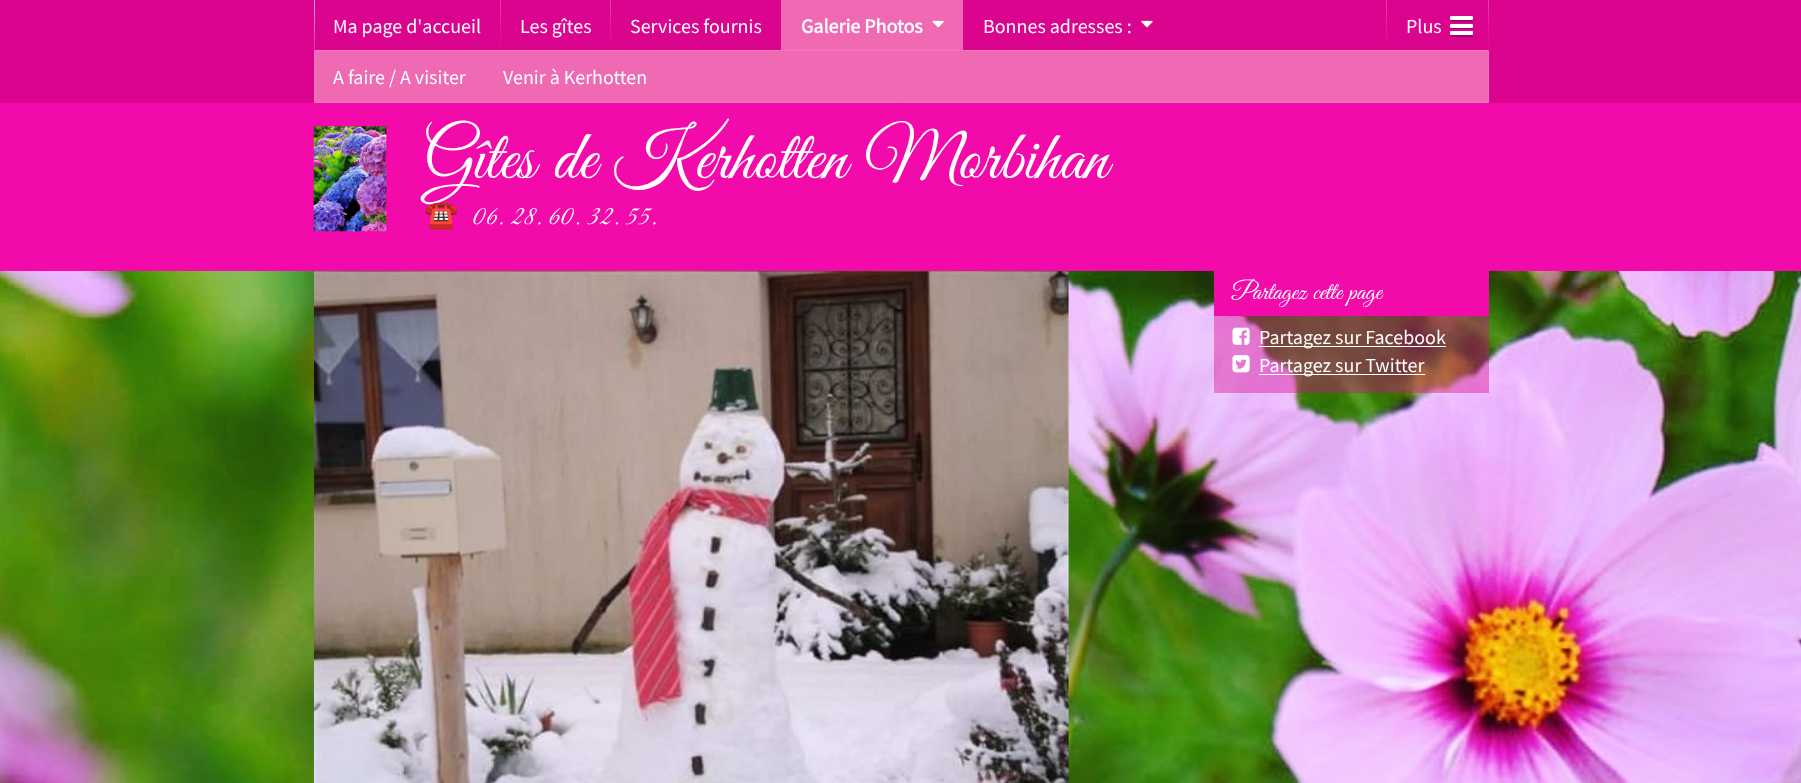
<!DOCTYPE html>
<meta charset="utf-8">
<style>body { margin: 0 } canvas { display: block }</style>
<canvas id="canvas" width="1801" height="783"></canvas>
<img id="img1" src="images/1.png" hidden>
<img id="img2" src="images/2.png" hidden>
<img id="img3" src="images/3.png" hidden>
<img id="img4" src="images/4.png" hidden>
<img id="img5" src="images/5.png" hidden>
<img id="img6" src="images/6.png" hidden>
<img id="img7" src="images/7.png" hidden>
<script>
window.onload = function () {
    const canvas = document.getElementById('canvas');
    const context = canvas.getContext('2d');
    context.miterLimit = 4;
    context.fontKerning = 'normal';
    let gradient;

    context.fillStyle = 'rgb(255, 255, 255)';
    context.fillRect(0, 0, 1801, 783);
    context.drawImage(document.getElementById('img1'), 0, 271, 1801, 512);
    context.fillStyle = 'rgb(242, 10, 171)';
    context.fillRect(0, 103, 1801, 168);
    context.fillStyle = 'rgb(219, 4, 142)';
    context.fillRect(0, 0, 1801, 103);
    context.fillStyle = 'rgb(240, 106, 179)';
    context.fillRect(781, 0, 182, 50);
    gradient = context.createLinearGradient(314, 0, 314, 50);
    gradient.addColorStop(0, 'rgb(228, 64, 169)');
    gradient.addColorStop(1, 'rgb(219, 4, 142)');
    context.fillStyle = gradient;
    context.fillRect(314, 0, 1, 50);
    context.fillStyle = 'rgba(241, 155, 210, 0.24)';
    context.fillRect(314, 0, 1, 50);
    gradient = context.createLinearGradient(314, 0, 314, 50);
    gradient.addColorStop(0, 'rgba(255, 255, 255, 0.24)');
    gradient.addColorStop(1, 'rgba(219, 4, 142, 0.24)');
    context.fillStyle = gradient;
    context.fillRect(314, 0, 1, 50);
    context.drawImage(document.getElementById('img2'), 932, 20, 12, 8);
    context.fillStyle = 'rgb(240, 106, 179)';
    context.beginPath();
    context.rect(314.5, 50.5, 1174, 52);
    context.fill();
    context.strokeStyle = 'rgb(242, 121, 187)';
    context.stroke();
    gradient = context.createLinearGradient(1488, 0, 1488, 50);
    gradient.addColorStop(0, 'rgb(228, 64, 169)');
    gradient.addColorStop(1, 'rgb(219, 4, 142)');
    context.fillStyle = gradient;
    context.fillRect(1488, 0, 1, 50);
    gradient = context.createLinearGradient(501, 0, 501, 50);
    gradient.addColorStop(0, 'rgb(228, 64, 169)');
    gradient.addColorStop(1, 'rgb(219, 4, 142)');
    context.fillStyle = gradient;
    context.fillRect(500, 0, 1, 50);
    gradient = context.createLinearGradient(611, 0, 611, 50);
    gradient.addColorStop(0, 'rgb(228, 64, 169)');
    gradient.addColorStop(1, 'rgb(219, 4, 142)');
    context.fillStyle = gradient;
    context.fillRect(610, 0, 1, 50);
    context.fillStyle = 'rgba(241, 155, 210, 0.24)';
    context.fillRect(314, 0, 1, 50);
    gradient = context.createLinearGradient(314, 0, 314, 50);
    gradient.addColorStop(0, 'rgba(255, 255, 255, 0.24)');
    gradient.addColorStop(1, 'rgba(219, 4, 142, 0.24)');
    context.fillStyle = gradient;
    context.fillRect(314, 0, 1, 50);
    context.drawImage(document.getElementById('img3'), 1141, 20, 12, 8);
    gradient = context.createLinearGradient(1387, 0, 1387, 50);
    gradient.addColorStop(0, 'rgb(228, 64, 169)');
    gradient.addColorStop(1, 'rgb(219, 4, 142)');
    context.fillStyle = gradient;
    context.fillRect(1386, 0, 1, 50);
    context.fillStyle = 'rgb(164, 3, 107)';
    context.beginPath();
    context.moveTo(1450, 19);
    context.bezierCurveTo(1449.5, 23, 1450.5, 22, 1454.5, 22);
    context.lineTo(1468.5, 22);
    context.bezierCurveTo(1471.5, 22, 1473, 23, 1473, 20);
    context.bezierCurveTo(1473, 19.5, 1473, 18.5, 1472.5, 18);
    context.lineTo(1472.5, 19);
    context.bezierCurveTo(1472.5, 19.5, 1472, 20, 1471, 20);
    context.lineTo(1451, 20);
    context.bezierCurveTo(1450.5, 20, 1450, 19.5, 1450, 19);
    context.closePath();
    context.fill();
    context.fillStyle = 'rgb(255, 255, 255)';
    context.beginPath();
    context.roundRect(1450, 16, 23, 4, 1);
    context.fill();
    context.fillStyle = 'rgb(164, 3, 107)';
    context.beginPath();
    context.moveTo(1450, 26);
    context.bezierCurveTo(1450, 30, 1450.5, 29, 1454.5, 29);
    context.lineTo(1468.5, 29);
    context.bezierCurveTo(1471.5, 29, 1473, 30, 1473, 27);
    context.bezierCurveTo(1473, 26.5, 1473, 25.5, 1472.5, 25);
    context.lineTo(1472.5, 26);
    context.bezierCurveTo(1472.5, 27, 1472, 27.5, 1471, 27.5);
    context.lineTo(1451, 27.5);
    context.bezierCurveTo(1450.5, 27.5, 1450, 27, 1450, 26);
    context.closePath();
    context.fill();
    context.fillStyle = 'rgb(255, 255, 255)';
    context.beginPath();
    context.roundRect(1450, 24, 23, 4, 1);
    context.fill();
    context.fillStyle = 'rgb(164, 3, 107)';
    context.beginPath();
    context.moveTo(1450, 34);
    context.bezierCurveTo(1449.5, 38, 1450.5, 37, 1454.5, 37);
    context.lineTo(1468.5, 37);
    context.bezierCurveTo(1471.5, 37, 1473, 38, 1473, 35);
    context.bezierCurveTo(1473, 34.5, 1473, 33.5, 1472.5, 33);
    context.lineTo(1472.5, 34);
    context.bezierCurveTo(1472.5, 34.5, 1472, 35, 1471, 35);
    context.lineTo(1451, 35);
    context.bezierCurveTo(1450.5, 35, 1450, 34.5, 1450, 34);
    context.closePath();
    context.fill();
    context.fillStyle = 'rgb(255, 255, 255)';
    context.beginPath();
    context.roundRect(1450, 31, 23, 4, 1);
    context.fill();
    context.drawImage(document.getElementById('img4'), 313, 126, 74, 106);
    context.drawImage(document.getElementById('img5'), 313, 271, 756, 512);
    context.fillStyle = 'rgb(242, 10, 171)';
    context.fillRect(1214, 271, 275, 45);
    context.fillStyle = 'rgba(219, 4, 142, 0.4)';
    context.fillRect(1214, 316, 275, 77);
    context.drawImage(document.getElementById('img6'), 1232, 327, 18, 18);
    context.fillStyle = 'rgb(255, 255, 255)';
    context.fillRect(1259, 346, 187, 1);
    context.drawImage(document.getElementById('img7'), 1232, 355, 18, 18);
    context.fillRect(1259, 374, 166, 1);
    context.font = 'bold 20px Source Sans Pro';
    context.fillText('Galerie Photos', 801, 33);
    context.font = '20px Source Sans Pro';
    context.fillText('A faire / A visiter', 333, 84);
    context.fillText('Venir à Kerhotten', 503, 84);
    context.fillText('Ma page d\'accueil', 333, 33);
    context.fillText('Les gîtes', 520, 33);
    context.fillText('Services fournis', 630, 33);
    context.fillText('Bonnes adresses :', 983, 33);
    context.fillText('Plus', 1406, 33);
    context.font = '70px Great Vibes';
    context.fillText('Gîtes de Kerhotten Morbihan', 424, 178);
    context.font = '27.5px Noto Color Emoji';
    context.fillText('☎️', 424, 224);
    context.font = '27.5px Great Vibes';
    context.fillText('06. 28. 60. 32. 55.', 472, 224);
    context.font = '25px Great Vibes';
    context.fillText('Partagez cette page', 1232, 299);
    context.font = '20px Source Sans Pro';
    context.fillText('Partagez sur Facebook', 1259, 344);
    context.fillText('Partagez sur Twitter', 1259, 372);
};
</script>
